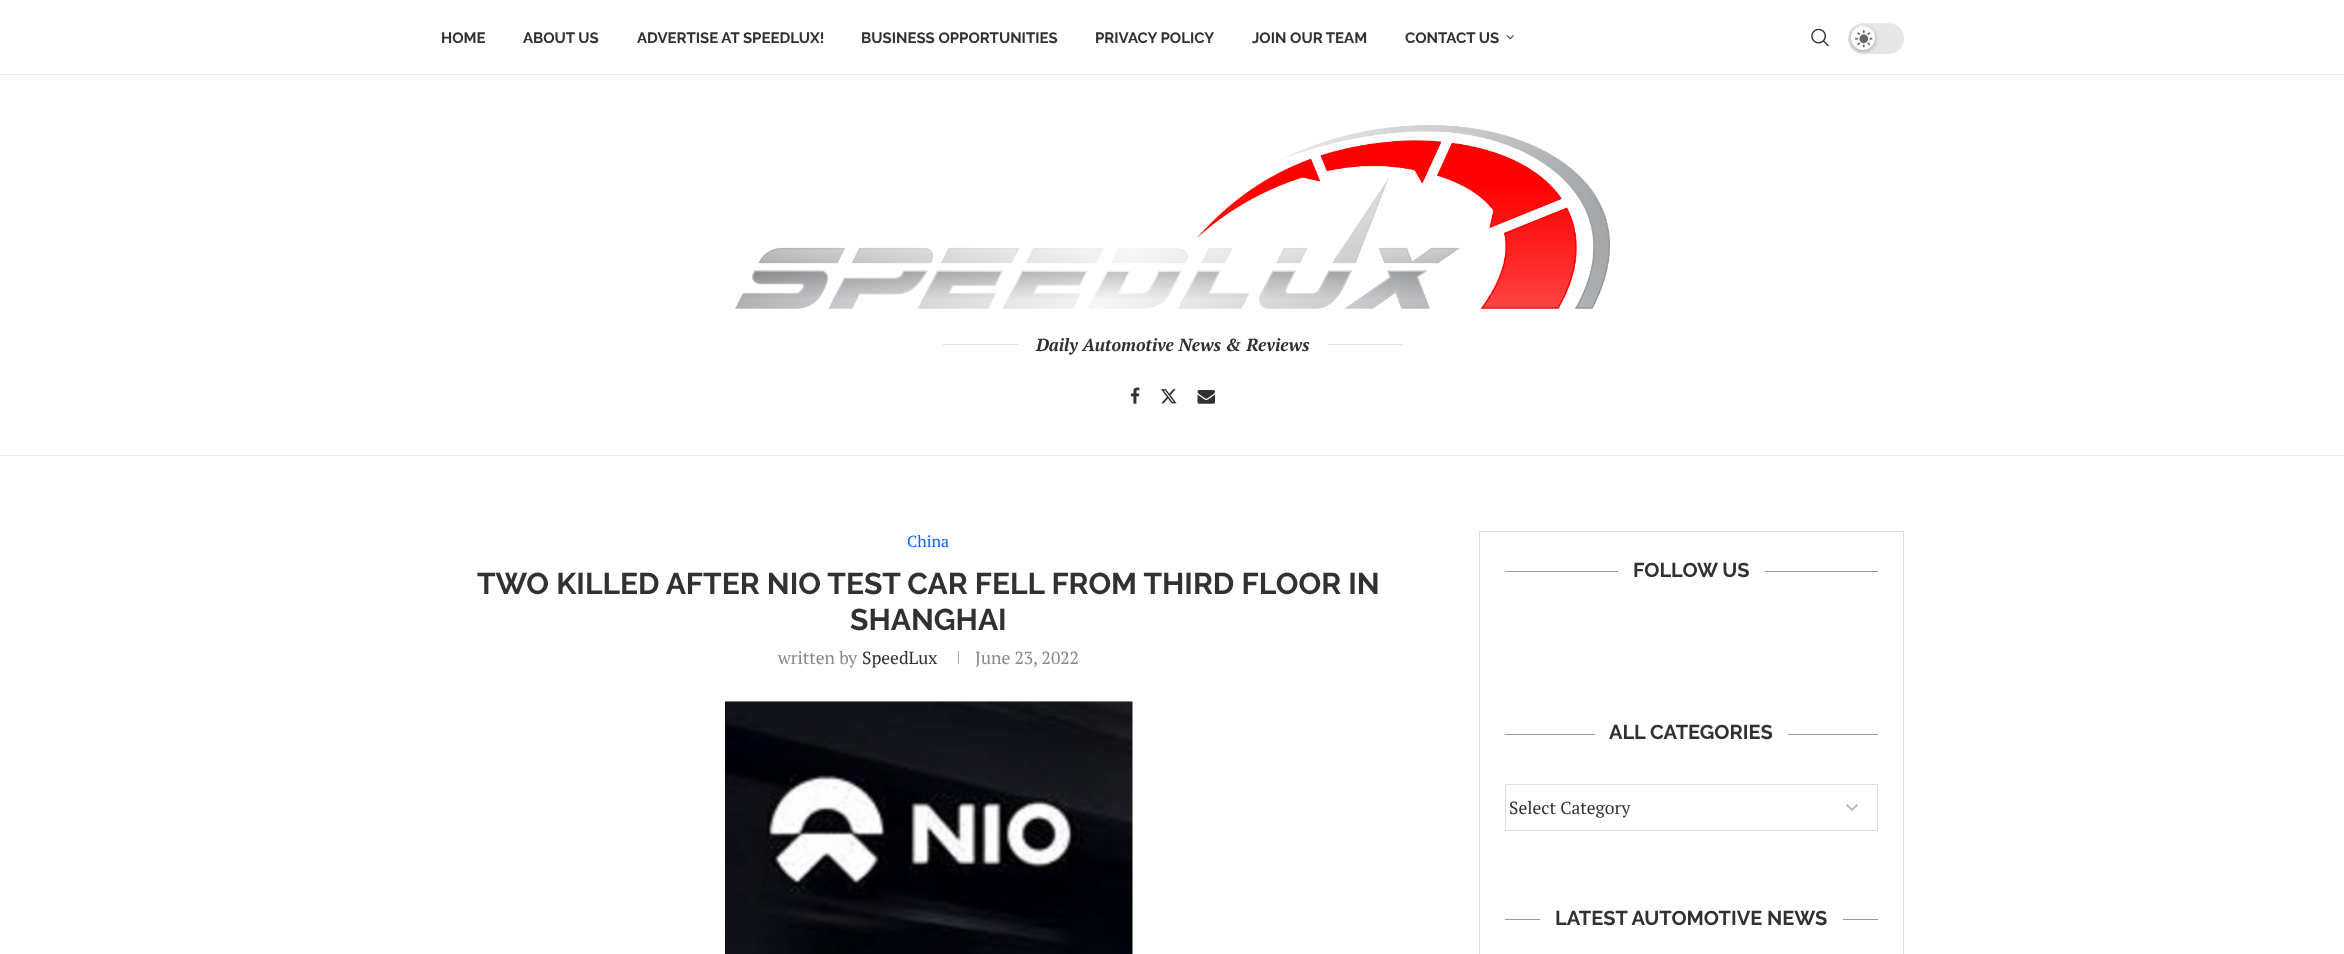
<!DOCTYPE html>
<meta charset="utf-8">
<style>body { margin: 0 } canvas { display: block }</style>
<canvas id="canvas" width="2344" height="954"></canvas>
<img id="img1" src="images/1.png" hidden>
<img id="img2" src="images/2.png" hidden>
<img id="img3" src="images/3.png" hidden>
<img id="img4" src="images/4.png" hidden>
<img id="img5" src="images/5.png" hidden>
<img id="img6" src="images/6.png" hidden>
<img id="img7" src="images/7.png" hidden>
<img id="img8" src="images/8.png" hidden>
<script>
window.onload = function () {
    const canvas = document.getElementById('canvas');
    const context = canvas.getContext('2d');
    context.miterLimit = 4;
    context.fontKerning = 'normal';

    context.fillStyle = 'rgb(255, 255, 255)';
    context.fillRect(0, 0, 2344, 954);
    context.fillStyle = 'rgb(236, 236, 236)';
    context.fillRect(0, 74, 2344, 1);
    context.drawImage(document.getElementById('img1'), 1506, 35, 8, 5);
    context.drawImage(document.getElementById('img2'), 1811, 28, 18, 19);
    context.fillStyle = 'rgb(230, 230, 230)';
    context.beginPath();
    context.roundRect(1848, 23, 56, 31, 15.5);
    context.fill();
    context.fillStyle = 'rgba(0, 0, 0, 0.3)';
    context.filter = 'blur(2px)';
    context.beginPath();
    context.roundRect(1851, 28, 24, 23, 11.5);
    context.fill();
    context.filter = 'none';
    context.fillStyle = 'rgb(255, 255, 255)';
    context.beginPath();
    context.arc(1863, 38, 12, 0, 2 * Math.PI);
    context.fill();
    context.drawImage(document.getElementById('img3'), 1855, 30, 18, 18);
    context.fillStyle = 'rgb(236, 236, 236)';
    context.fillRect(0, 455, 2344, 1);
    context.drawImage(document.getElementById('img4'), 735, 125, 875, 184);
    context.fillStyle = 'rgb(222, 222, 222)';
    context.fillRect(943, 344, 75, 1);
    context.fillRect(1328, 344, 75, 1);
    context.drawImage(document.getElementById('img5'), 1130, 387, 10, 17);
    context.drawImage(document.getElementById('img6'), 1161, 389, 16, 15);
    context.drawImage(document.getElementById('img7'), 1197, 390, 18, 14);
    context.fillStyle = 'rgb(172, 172, 172)';
    context.fillRect(958, 651, 1, 13);
    context.drawImage(document.getElementById('img8'), 725, 701, 408, 253);
    context.strokeStyle = 'rgb(222, 222, 222)';
    context.strokeRect(1479.5, 531.5, 424, 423);
    context.fillStyle = 'rgb(152, 152, 152)';
    context.fillRect(1505, 571, 113, 1);
    context.fillRect(1765, 571, 113, 1);
    context.fillRect(1505, 734, 90, 1);
    context.fillRect(1788, 734, 90, 1);
    context.beginPath();
    context.moveTo(1846.5, 804.5);
    context.lineTo(1852, 810);
    context.lineTo(1857.5, 804.5);
    context.strokeStyle = 'rgb(187, 187, 187)';
    context.lineWidth = 1.8;
    context.stroke();
    context.strokeStyle = 'rgb(222, 222, 222)';
    context.lineWidth = 1;
    context.strokeRect(1505.5, 784.5, 372, 46);
    context.fillRect(1505, 919, 35, 1);
    context.fillRect(1843, 919, 35, 1);
    context.font = 'bold 15px Raleway';
    context.fillStyle = 'rgb(49, 49, 49)';
    context.fillText('HOME', 441, 43);
    context.fillText('ABOUT US', 523, 43);
    context.fillText('ADVERTISE AT SPEEDLUX!', 637, 43);
    context.fillText('BUSINESS OPPORTUNITIES', 861, 43);
    context.fillText('PRIVACY POLICY', 1095, 43);
    context.fillText('JOIN OUR TEAM', 1252, 43);
    context.fillText('CONTACT US', 1405, 43);
    context.font = 'italic bold 17.5px PT Serif';
    context.fillText('Daily Automotive News & Reviews', 1036, 351);
    context.font = '16px PT Serif';
    context.fillStyle = 'rgb(0, 102, 255)';
    context.fillText('China', 907, 547);
    context.font = 'bold 30px Raleway';
    context.fillStyle = 'rgb(49, 49, 49)';
    context.fillText('TWO KILLED AFTER NIO TEST CAR FELL FROM THIRD FLOOR IN', 477, 594);
    context.fillText('SHANGHAI', 850, 630);
    context.font = '17.5px PT Serif';
    context.fillStyle = 'rgb(136, 136, 136)';
    context.fillText('written by', 778, 664);
    context.fillStyle = 'rgb(49, 49, 49)';
    context.fillText('SpeedLux', 862, 664);
    context.fillStyle = 'rgb(136, 136, 136)';
    context.fillText('June 23, 2022', 975, 664);
    context.font = 'bold 20px Raleway';
    context.fillStyle = 'rgb(49, 49, 49)';
    context.fillText('FOLLOW US', 1633, 577);
    context.fillText('ALL CATEGORIES', 1609, 739);
    context.font = '17.5px PT Serif';
    context.fillText('Select Category', 1509, 814);
    context.font = 'bold 20px Raleway';
    context.fillText('LATEST AUTOMOTIVE NEWS', 1555, 925);
};
</script>
